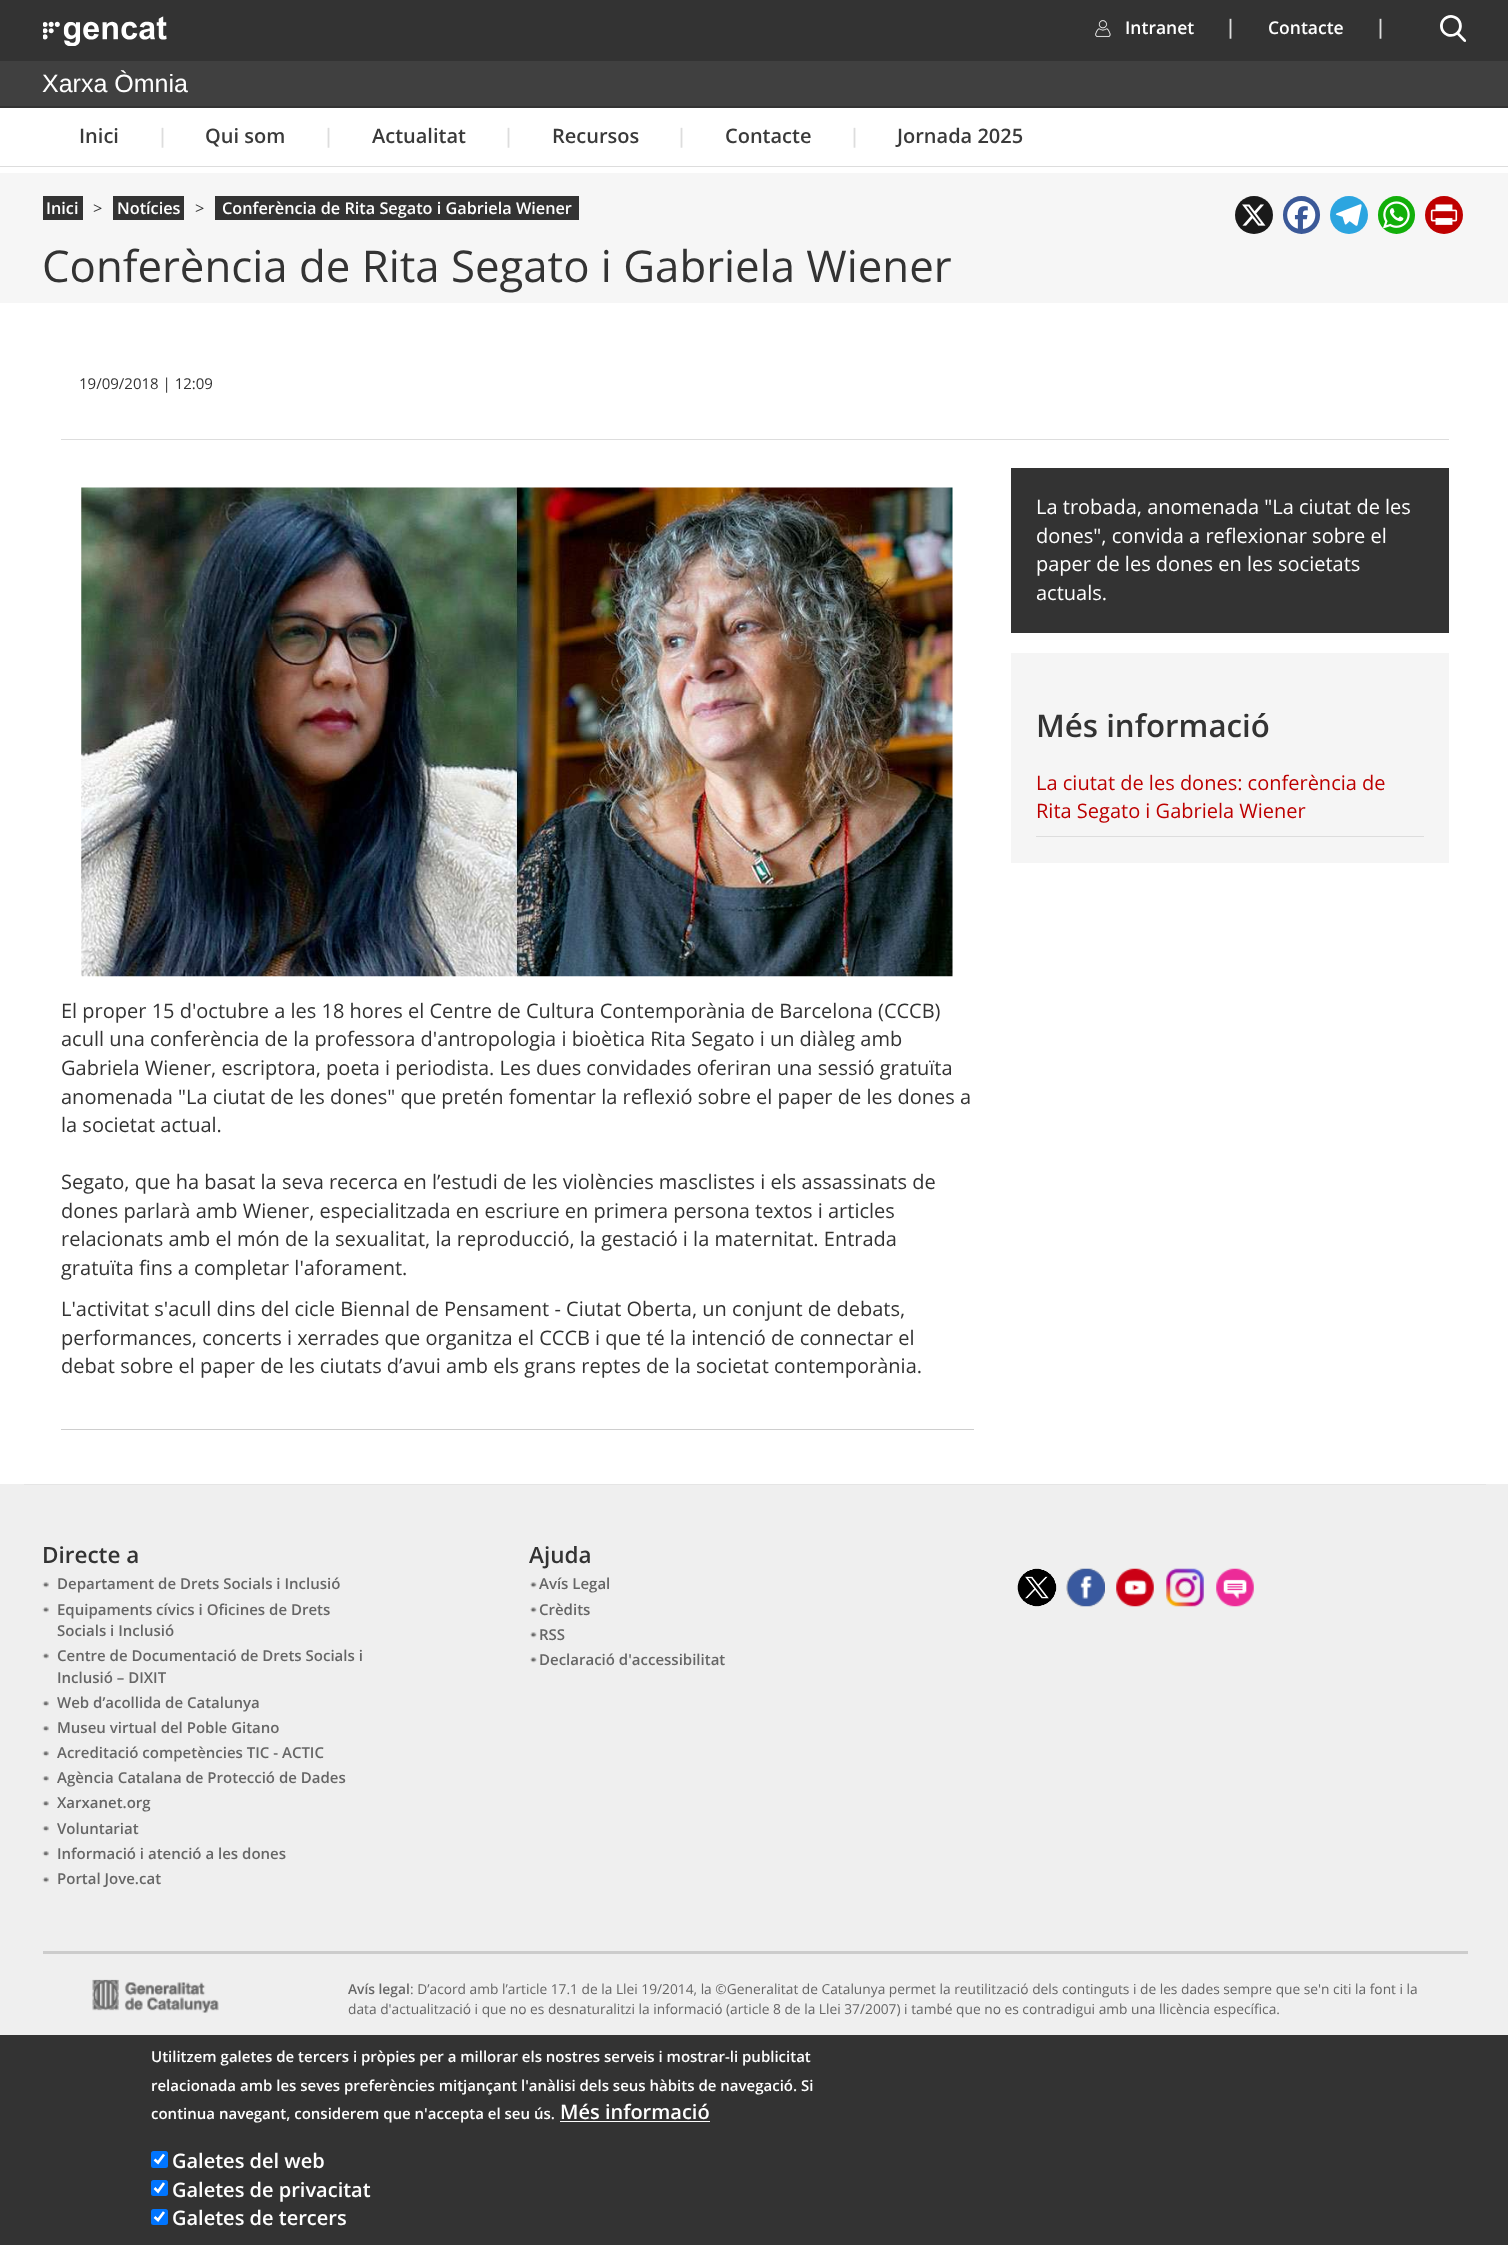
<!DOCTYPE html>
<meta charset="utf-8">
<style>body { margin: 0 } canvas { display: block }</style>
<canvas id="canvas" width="1508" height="2245"></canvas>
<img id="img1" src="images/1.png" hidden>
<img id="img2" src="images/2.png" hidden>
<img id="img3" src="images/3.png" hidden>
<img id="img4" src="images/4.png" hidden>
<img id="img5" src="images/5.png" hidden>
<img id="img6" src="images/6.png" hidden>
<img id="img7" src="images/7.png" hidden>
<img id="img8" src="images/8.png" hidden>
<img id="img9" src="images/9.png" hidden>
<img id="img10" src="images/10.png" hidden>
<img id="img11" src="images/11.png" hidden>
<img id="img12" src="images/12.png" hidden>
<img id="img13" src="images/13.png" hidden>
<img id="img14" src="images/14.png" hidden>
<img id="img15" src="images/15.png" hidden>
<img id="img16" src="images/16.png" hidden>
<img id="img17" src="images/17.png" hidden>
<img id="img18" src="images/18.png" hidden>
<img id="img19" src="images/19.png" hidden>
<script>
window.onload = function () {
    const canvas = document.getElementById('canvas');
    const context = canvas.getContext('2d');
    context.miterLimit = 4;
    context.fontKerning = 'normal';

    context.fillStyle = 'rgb(255, 255, 255)';
    context.fillRect(0, 0, 1508, 2245);
    context.fillStyle = 'rgb(51, 51, 51)';
    context.fillRect(0, 0, 1508, 108);
    context.drawImage(document.getElementById('img1'), 43, 16, 124, 30);
    context.drawImage(document.getElementById('img2'), 1095, 20, 16, 18);
    context.drawImage(document.getElementById('img3'), 1440, 15, 26, 27);
    context.fillStyle = 'rgb(64, 64, 64)';
    context.fillRect(0, 61, 1508, 45);
    context.fillStyle = 'rgb(221, 221, 221)';
    context.fillRect(0, 166, 1508, 1);
    context.fillStyle = 'rgb(246, 246, 246)';
    context.fillRect(0, 173, 1508, 130);
    context.fillStyle = 'rgb(51, 51, 51)';
    context.fillRect(43, 196, 40, 24);
    context.fillRect(113, 196, 71, 24);
    context.fillRect(215, 196, 364, 24);
    context.fillStyle = 'rgb(26, 26, 26)';
    context.beginPath();
    context.arc(1254, 215, 19, 0, 2 * Math.PI);
    context.fill();
    context.drawImage(document.getElementById('img4'), 1242, 204, 24, 22);
    context.fillStyle = 'rgb(59, 89, 152)';
    context.beginPath();
    context.roundRect(1283, 196, 37, 38, 18.5);
    context.fill();
    context.drawImage(document.getElementById('img5'), 1287, 200, 29, 29);
    context.fillStyle = 'rgb(44, 165, 224)';
    context.beginPath();
    context.arc(1349, 215, 19, 0, 2 * Math.PI);
    context.fill();
    context.drawImage(document.getElementById('img6'), 1335, 204, 27, 22);
    context.fillStyle = 'rgb(18, 175, 10)';
    context.beginPath();
    context.roundRect(1378, 196, 37, 38, 18.5);
    context.fill();
    context.drawImage(document.getElementById('img7'), 1383, 201, 27, 28);
    context.fillStyle = 'rgb(191, 0, 0)';
    context.beginPath();
    context.arc(1444, 215, 19, 0, 2 * Math.PI);
    context.fill();
    context.drawImage(document.getElementById('img8'), 1430, 204, 28, 21);
    context.fillStyle = 'rgb(221, 221, 221)';
    context.fillRect(61, 439, 1388, 1);
    context.fillStyle = 'rgb(51, 51, 51)';
    context.fillRect(1011, 468, 438, 165);
    context.fillStyle = 'rgb(245, 245, 245)';
    context.fillRect(1011, 653, 438, 210);
    context.fillStyle = 'rgb(221, 221, 221)';
    context.fillRect(1036, 836, 388, 1);
    context.drawImage(document.getElementById('img9'), 81, 487, 872, 490);
    context.fillStyle = 'rgb(206, 206, 206)';
    context.fillRect(61, 1429, 913, 1);
    context.fillStyle = 'rgb(239, 239, 239)';
    context.fillRect(0, 1484, 1508, 551);
    context.fillStyle = 'rgb(229, 229, 229)';
    context.fillRect(24, 1484, 1462, 1);
    context.drawImage(document.getElementById('img10'), 42, 1582, 7, 6);
    context.drawImage(document.getElementById('img10'), 42, 1607, 7, 6);
    context.drawImage(document.getElementById('img11'), 42, 1653, 7, 6);
    context.drawImage(document.getElementById('img12'), 42, 1701, 7, 6);
    context.drawImage(document.getElementById('img12'), 42, 1726, 7, 6);
    context.drawImage(document.getElementById('img12'), 42, 1751, 7, 6);
    context.drawImage(document.getElementById('img12'), 42, 1776, 7, 6);
    context.drawImage(document.getElementById('img12'), 42, 1801, 7, 6);
    context.drawImage(document.getElementById('img12'), 42, 1826, 7, 6);
    context.drawImage(document.getElementById('img12'), 42, 1851, 7, 6);
    context.drawImage(document.getElementById('img10'), 42, 1877, 7, 6);
    context.drawImage(document.getElementById('img13'), 530, 1582, 7, 6);
    context.drawImage(document.getElementById('img13'), 530, 1607, 7, 6);
    context.drawImage(document.getElementById('img13'), 530, 1632, 7, 6);
    context.drawImage(document.getElementById('img13'), 530, 1657, 7, 6);
    context.drawImage(document.getElementById('img14'), 1017, 1568, 40, 39);
    context.drawImage(document.getElementById('img15'), 1066, 1568, 39, 39);
    context.drawImage(document.getElementById('img16'), 1116, 1568, 38, 39);
    context.drawImage(document.getElementById('img17'), 1166, 1568, 38, 39);
    context.drawImage(document.getElementById('img18'), 1216, 1568, 38, 39);
    context.fillStyle = 'rgb(204, 204, 204)';
    context.fillRect(43, 1951, 1425, 3);
    context.drawImage(document.getElementById('img19'), 92, 1979, 127, 34);
    context.fillStyle = 'rgb(51, 51, 51)';
    context.fillRect(0, 2035, 1508, 210);
    context.fillStyle = 'rgb(255, 255, 255)';
    context.fillRect(560, 2121, 150, 1);
    context.fillStyle = 'rgb(0, 117, 255)';
    context.beginPath();
    context.roundRect(151, 2151, 17, 17, 2.5);
    context.fill();
    context.beginPath();
    context.moveTo(154.5, 2159.5);
    context.lineTo(158, 2162.5);
    context.lineTo(164, 2154.5);
    context.strokeStyle = 'rgb(255, 255, 255)';
    context.lineWidth = 2.6;
    context.stroke();
    context.beginPath();
    context.roundRect(151, 2180, 17, 16, 2.5);
    context.fill();
    context.beginPath();
    context.moveTo(154.5, 2188);
    context.lineTo(158, 2191.5);
    context.lineTo(164, 2183);
    context.stroke();
    context.beginPath();
    context.roundRect(151, 2209, 17, 16, 2.5);
    context.fill();
    context.beginPath();
    context.moveTo(154.5, 2217);
    context.lineTo(158, 2220);
    context.lineTo(164, 2212);
    context.stroke();
    context.font = '600 17.5px Open Sans';
    context.fillStyle = 'rgb(255, 255, 255)';
    context.fillText('Intranet', 1125, 34);
    context.font = '600 20px Open Sans';
    context.fillStyle = 'rgb(221, 221, 221)';
    context.fillText('|', 1225, 34);
    context.font = '600 17.5px Open Sans';
    context.fillStyle = 'rgb(255, 255, 255)';
    context.fillText('Contacte', 1268, 34);
    context.font = '600 20px Open Sans';
    context.fillStyle = 'rgb(221, 221, 221)';
    context.fillText('|', 1375, 34);
    context.font = '25px Liberation Sans';
    context.fillStyle = 'rgb(255, 255, 255)';
    context.fillText('Xarxa Òmnia', 42, 92);
    context.font = '600 20px Open Sans';
    context.fillStyle = 'rgb(58, 58, 58)';
    context.fillText('Inici', 79, 143);
    context.fillStyle = 'rgb(221, 221, 221)';
    context.fillText('|', 157, 143);
    context.fillStyle = 'rgb(58, 58, 58)';
    context.fillText('Qui som', 205, 143);
    context.fillStyle = 'rgb(221, 221, 221)';
    context.fillText('|', 323, 143);
    context.fillStyle = 'rgb(58, 58, 58)';
    context.fillText('Actualitat', 372, 143);
    context.fillStyle = 'rgb(221, 221, 221)';
    context.fillText('|', 503, 143);
    context.fillStyle = 'rgb(58, 58, 58)';
    context.fillText('Recursos', 552, 143);
    context.fillStyle = 'rgb(221, 221, 221)';
    context.fillText('|', 676, 143);
    context.fillStyle = 'rgb(58, 58, 58)';
    context.fillText('Contacte', 725, 143);
    context.fillStyle = 'rgb(221, 221, 221)';
    context.fillText('|', 849, 143);
    context.fillStyle = 'rgb(58, 58, 58)';
    context.fillText('Jornada 2025', 897, 143);
    context.font = '600 16.25px Open Sans';
    context.fillStyle = 'rgb(255, 255, 255)';
    context.fillText('Inici', 46, 214);
    context.font = '16.25px Open Sans';
    context.fillStyle = 'rgb(51, 51, 51)';
    context.fillText('>', 93, 214);
    context.font = '600 16.25px Open Sans';
    context.fillStyle = 'rgb(255, 255, 255)';
    context.fillText('Notícies', 117, 214);
    context.font = '16.25px Open Sans';
    context.fillStyle = 'rgb(51, 51, 51)';
    context.fillText('>', 195, 214);
    context.font = '600 16.25px Open Sans';
    context.fillStyle = 'rgb(255, 255, 255)';
    context.fillText('Conferència de Rita Segato i Gabriela Wiener', 222, 214);
    context.font = '43.75px Open Sans';
    context.fillStyle = 'rgb(51, 51, 51)';
    context.fillText('Conferència de Rita Segato i Gabriela Wiener', 42, 282);
    context.font = '15px Open Sans';
    context.fillText('19/09/2018 | 12:09', 79, 389);
    context.font = '20px Open Sans';
    context.fillStyle = 'rgb(255, 255, 255)';
    context.fillText('La trobada, anomenada "La ciutat de les', 1036, 514);
    context.fillText('dones", convida a reflexionar sobre el', 1036, 543);
    context.fillText('paper de les dones en les societats', 1036, 571);
    context.fillText('actuals.', 1036, 600);
    context.font = '600 31.25px Open Sans';
    context.fillStyle = 'rgb(51, 51, 51)';
    context.fillText('Més informació', 1036, 737);
    context.font = '20px Open Sans';
    context.fillStyle = 'rgb(189, 0, 0)';
    context.fillText('La ciutat de les dones: conferència de', 1036, 790);
    context.fillText('Rita Segato i Gabriela Wiener', 1036, 818);
    context.fillStyle = 'rgb(51, 51, 51)';
    context.fillText('El proper 15 d\'octubre a les 18 hores el Centre de Cultura Contemporània de Barcelona (CCCB)', 61, 1018);
    context.fillText('acull una conferència de la professora d\'antropologia i bioètica Rita Segato i un diàleg amb', 61, 1046);
    context.fillText('Gabriela Wiener, escriptora, poeta i periodista. Les dues convidades oferiran una sessió gratuïta', 61, 1075);
    context.fillText('anomenada "La ciutat de les dones" que pretén fomentar la reflexió sobre el paper de les dones a', 61, 1104);
    context.fillText('la societat actual.', 61, 1132);
    context.fillText('Segato, que ha basat la seva recerca en l’estudi de les violències masclistes i els assassinats de', 61, 1189);
    context.fillText('dones parlarà amb Wiener, especialitzada en escriure en primera persona textos i articles', 61, 1218);
    context.fillText('relacionats amb el món de la sexualitat, la reproducció, la gestació i la maternitat. Entrada', 61, 1246);
    context.fillText('gratuïta fins a completar l\'aforament.', 61, 1275);
    context.fillText('L\'activitat s\'acull dins del cicle Biennal de Pensament - Ciutat Oberta, un conjunt de debats,', 61, 1316);
    context.fillText('performances, concerts i xerrades que organitza el CCCB i que té la intenció de connectar el', 61, 1345);
    context.fillText('debat sobre el paper de les ciutats d’avui amb els grans reptes de la societat contemporània.', 61, 1373);
    context.font = '600 22.5px Open Sans';
    context.fillText('Directe a', 42, 1563);
    context.font = '600 15px Open Sans';
    context.fillStyle = 'rgb(102, 102, 102)';
    context.fillText('Departament de Drets Socials i Inclusió', 57, 1589);
    context.fillText('Equipaments cívics i Oficines de Drets', 57, 1615);
    context.fillText('Socials i Inclusió', 57, 1636);
    context.fillText('Centre de Documentació de Drets Socials i', 57, 1661);
    context.fillText('Inclusió – DIXIT', 57, 1683);
    context.fillText('Web d’acollida de Catalunya', 57, 1708);
    context.fillText('Museu virtual del Poble Gitano', 57, 1733);
    context.fillText('Acreditació competències TIC - ACTIC', 57, 1758);
    context.fillText('Agència Catalana de Protecció de Dades', 57, 1783);
    context.fillText('Xarxanet.org', 57, 1808);
    context.fillText('Voluntariat', 57, 1834);
    context.fillText('Informació i atenció a les dones', 57, 1859);
    context.fillText('Portal Jove.cat', 57, 1884);
    context.font = '600 22.5px Open Sans';
    context.fillStyle = 'rgb(51, 51, 51)';
    context.fillText('Ajuda', 529, 1563);
    context.font = '600 15px Open Sans';
    context.fillStyle = 'rgb(102, 102, 102)';
    context.fillText('Avís Legal', 539, 1589);
    context.fillText('Crèdits', 539, 1615);
    context.fillText('RSS', 539, 1640);
    context.fillText('Declaració d\'accessibilitat', 539, 1665);
    context.font = '600 13.75px Open Sans';
    context.fillText('Avís legal', 348, 1994);
    context.font = '13.75px Open Sans';
    context.fillText(': D’acord amb l’article 17.1 de la Llei 19/2014, la ©Generalitat de Catalunya permet la reutilització dels continguts i de les dades sempre que se\'n citi la font i la', 410, 1994);
    context.fillText('data d\'actualització i que no es desnaturalitzi la informació (article 8 de la Llei 37/2007) i també que no es contradigui amb una llicència específica.', 348, 2014);
    context.font = '600 15px Open Sans';
    context.fillStyle = 'rgb(255, 255, 255)';
    context.fillText('Utilitzem galetes de tercers i pròpies per a millorar els nostres serveis i mostrar-li publicitat', 151, 2062);
    context.fillText('relacionada amb les seves preferències mitjançant l\'anàlisi dels seus hàbits de navegació. Si', 151, 2091);
    context.fillText('continua navegant, considerem que n\'accepta el seu ús.', 151, 2119);
    context.font = '600 20px Open Sans';
    context.fillText('Més informació', 560, 2119);
    context.fillText('Galetes del web', 172, 2168);
    context.fillText('Galetes de privacitat', 172, 2197);
    context.fillText('Galetes de tercers', 172, 2225);
};
</script>
